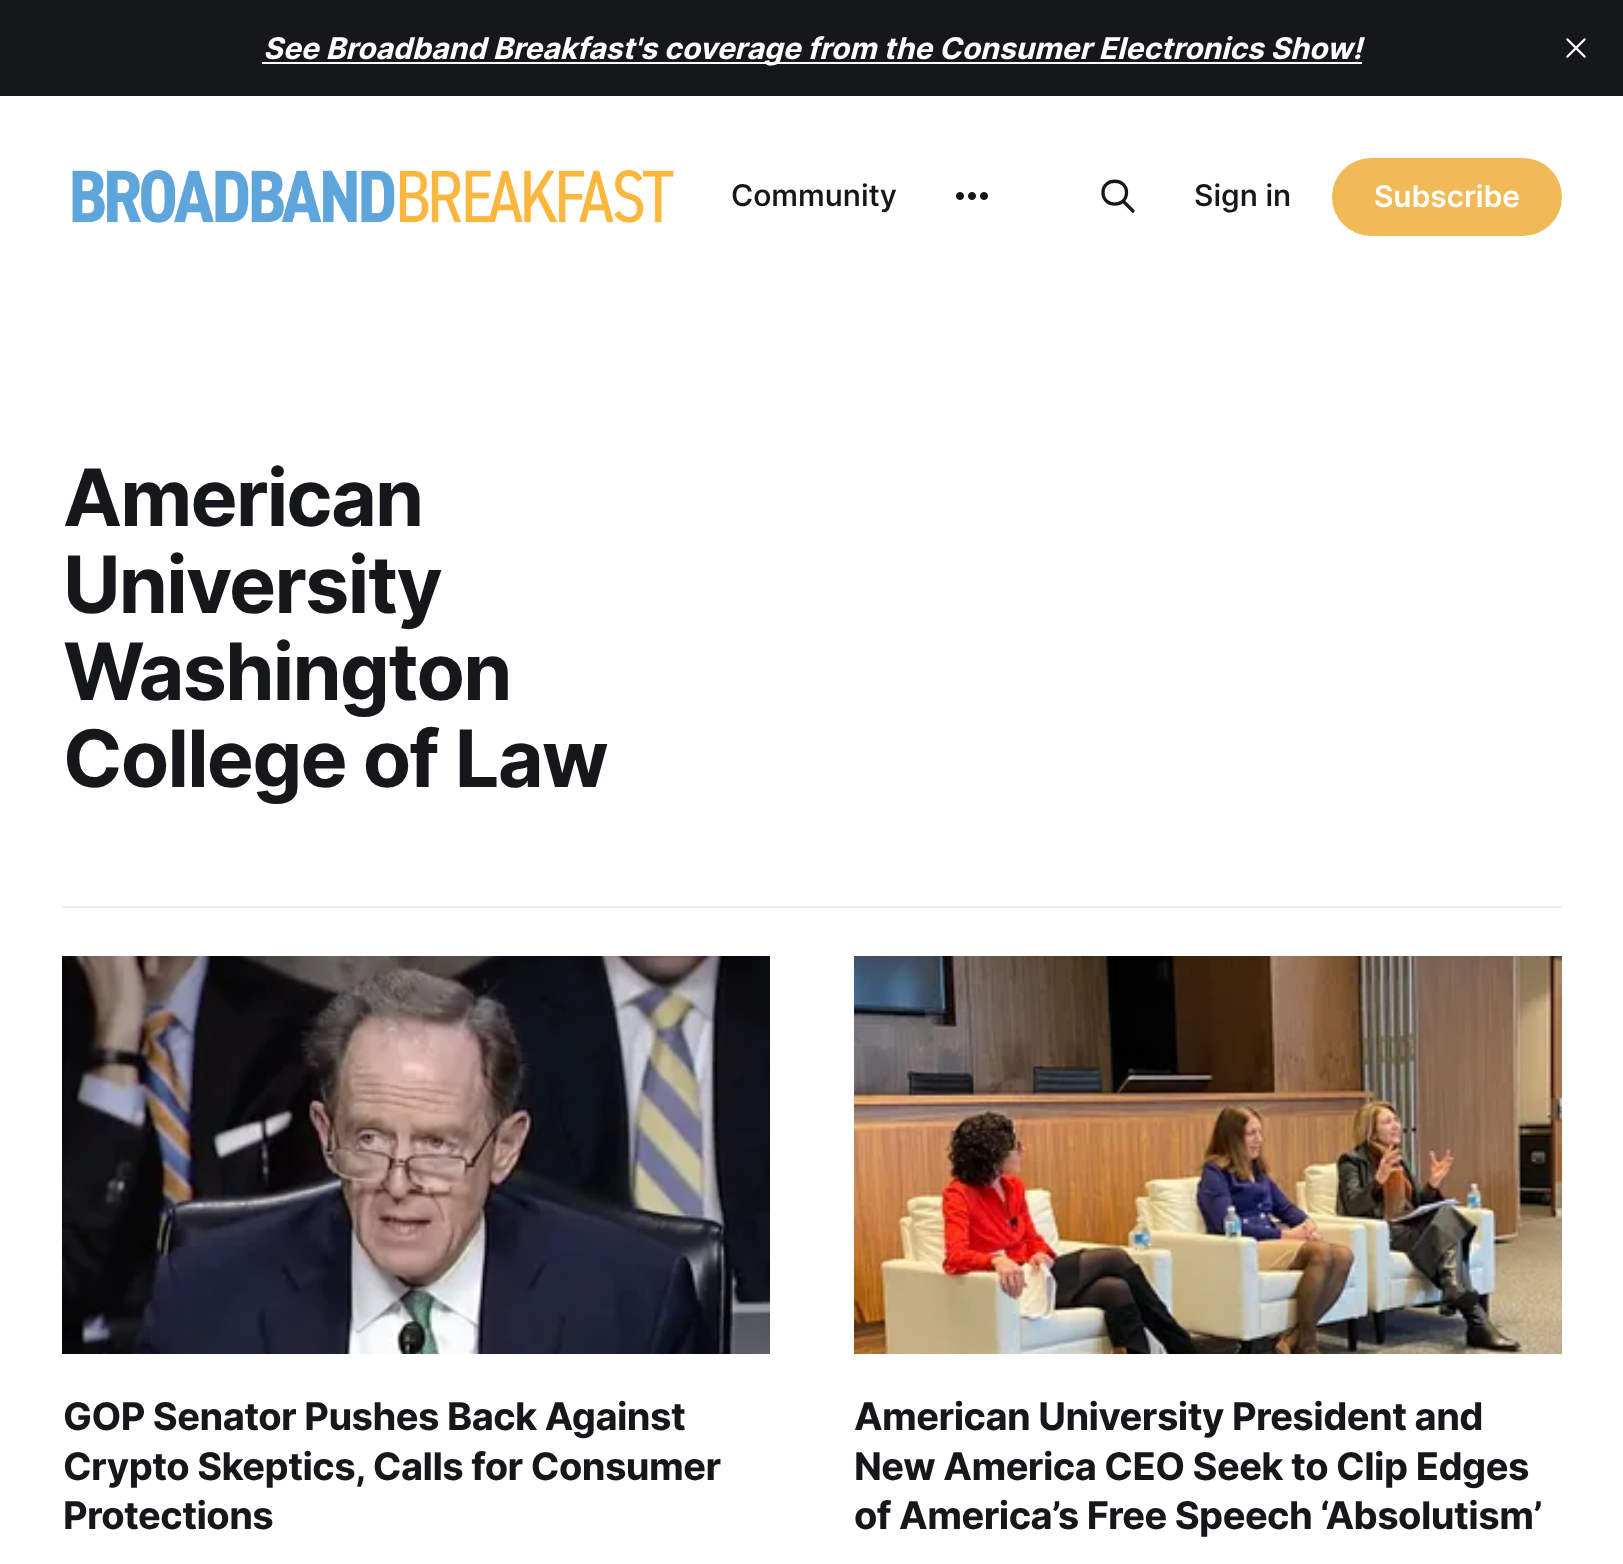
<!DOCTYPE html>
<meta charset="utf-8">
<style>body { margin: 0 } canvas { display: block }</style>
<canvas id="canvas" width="1623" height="1564"></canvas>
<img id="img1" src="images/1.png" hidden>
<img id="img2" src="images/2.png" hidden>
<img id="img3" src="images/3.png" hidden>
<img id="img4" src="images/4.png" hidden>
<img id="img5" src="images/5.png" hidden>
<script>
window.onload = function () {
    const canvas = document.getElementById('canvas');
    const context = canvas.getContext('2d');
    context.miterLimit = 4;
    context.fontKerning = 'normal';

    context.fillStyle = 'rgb(255, 255, 255)';
    context.fillRect(0, 0, 1623, 1564);
    context.fillStyle = 'rgb(21, 23, 26)';
    context.fillRect(0, 0, 1623, 96);
    context.fillStyle = 'rgb(255, 255, 255)';
    context.fillRect(262, 62, 1100, 2);
    context.drawImage(document.getElementById('img1'), 1566, 38, 20, 20);
    context.drawImage(document.getElementById('img2'), 72, 169, 602, 54);
    context.drawImage(document.getElementById('img3'), 956, 192, 32, 8);
    context.beginPath();
    context.moveTo(1133, 211);
    context.lineTo(1123, 201);
    context.moveTo(1126.5, 192.5);
    context.bezierCurveTo(1126.5, 208, 1103, 208, 1103, 192.5);
    context.bezierCurveTo(1103, 177.5, 1126.5, 177.5, 1126.5, 192.5);
    context.closePath();
    context.strokeStyle = 'rgb(21, 23, 26)';
    context.lineWidth = 3.3;
    context.lineCap = 'round';
    context.lineJoin = 'round';
    context.stroke();
    context.fillStyle = 'rgb(242, 185, 87)';
    context.beginPath();
    context.roundRect(1332, 158, 230, 78, 39);
    context.fill();
    context.fillStyle = 'rgb(235, 235, 235)';
    context.fillRect(62, 906, 1500, 2);
    context.drawImage(document.getElementById('img4'), 62, 956, 708, 398);
    context.drawImage(document.getElementById('img5'), 854, 956, 708, 398);
    context.font = 'italic bold 30px Inter';
    context.fillStyle = 'rgb(255, 255, 255)';
    context.fillText('See Broadband Breakfast\'s coverage from the Consumer Electronics Show!', 263, 59);
    context.font = '500 30px Inter';
    context.fillStyle = 'rgb(21, 23, 26)';
    context.fillText('Community', 731, 206);
    context.fillText('Sign in', 1194, 206);
    context.letterSpacing = '-0.1px';
    context.font = '600 30px Inter';
    context.fillStyle = 'rgb(255, 255, 255)';
    context.fillText('Subscribe', 1374, 207);
    context.letterSpacing = '-1.75px';
    context.font = 'bold 79px Inter';
    context.fillStyle = 'rgb(21, 23, 26)';
    context.fillText('American', 63, 526);
    context.fillText('University', 63, 613);
    context.fillText('Washington', 63, 700);
    context.fillText('College of Law', 63, 787);
    context.letterSpacing = '-0.55px';
    context.font = 'bold 38px "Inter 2"';
    context.fillText('GOP Senator Pushes Back Against', 63, 1430);
    context.fillText('Crypto Skeptics, Calls for Consumer', 63, 1480);
    context.fillText('Protections', 63, 1529);
    context.fillText('American University President and', 854, 1430);
    context.fillText('New America CEO Seek to Clip Edges', 854, 1480);
    context.fillText('of America’s Free Speech ‘Absolutism’', 854, 1529);
};
</script>
